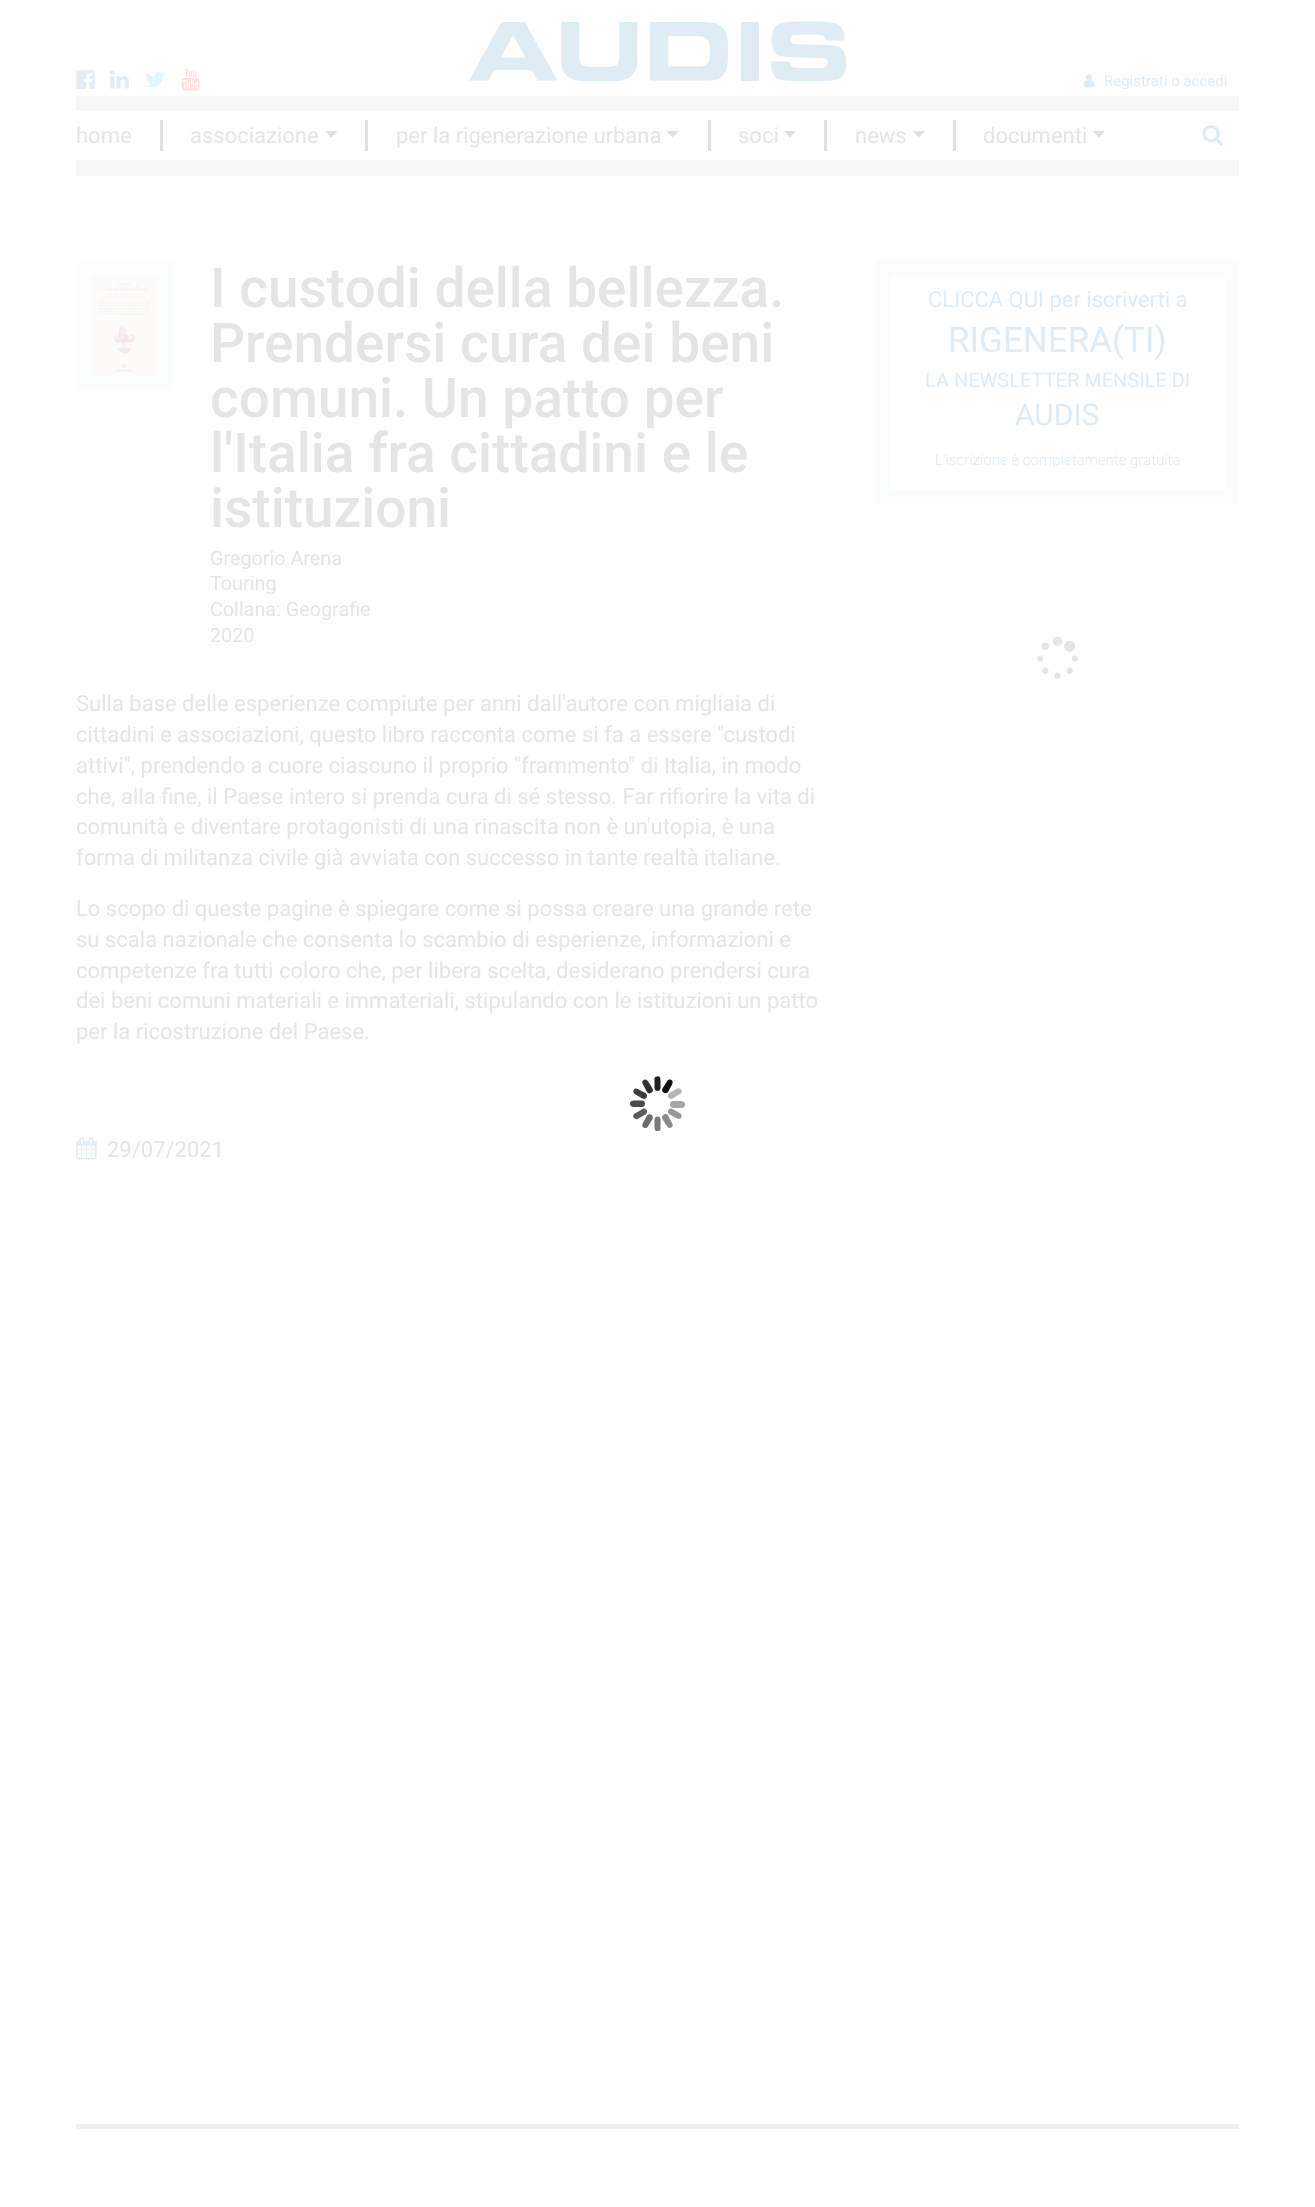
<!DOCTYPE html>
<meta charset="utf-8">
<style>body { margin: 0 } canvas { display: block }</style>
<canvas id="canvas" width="1315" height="2207"></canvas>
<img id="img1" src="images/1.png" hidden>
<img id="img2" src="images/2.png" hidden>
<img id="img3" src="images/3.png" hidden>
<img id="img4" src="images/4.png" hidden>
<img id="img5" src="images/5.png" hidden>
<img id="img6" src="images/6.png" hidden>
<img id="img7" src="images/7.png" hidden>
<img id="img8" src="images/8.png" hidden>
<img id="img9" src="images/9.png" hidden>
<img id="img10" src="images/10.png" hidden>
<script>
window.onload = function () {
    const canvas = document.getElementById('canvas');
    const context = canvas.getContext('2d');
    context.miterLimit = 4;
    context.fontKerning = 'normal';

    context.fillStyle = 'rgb(255, 255, 255)';
    context.fillRect(0, 0, 1315, 2207);
    context.fillStyle = 'rgb(246, 246, 246)';
    context.fillRect(76, 96, 1163, 15);
    context.drawImage(document.getElementById('img1'), 76, 70, 20, 20);
    context.drawImage(document.getElementById('img2'), 110, 70, 19, 19);
    context.drawImage(document.getElementById('img3'), 145, 71, 20, 17);
    context.drawImage(document.getElementById('img4'), 181, 68, 19, 23);
    context.drawImage(document.getElementById('img5'), 469, 21, 377, 60);
    context.drawImage(document.getElementById('img6'), 1083, 74, 12, 14);
    context.fillRect(76, 160, 1163, 16);
    context.fillStyle = 'rgb(224, 224, 224)';
    context.fillRect(160, 120, 3, 31);
    context.beginPath();
    context.moveTo(325, 131);
    context.lineTo(337.5, 131);
    context.lineTo(331, 137.5);
    context.closePath();
    context.fill();
    context.fillRect(365, 120, 3, 31);
    context.beginPath();
    context.moveTo(666, 131);
    context.lineTo(679, 131);
    context.lineTo(672.5, 137.5);
    context.closePath();
    context.fill();
    context.fillRect(708, 120, 3, 31);
    context.beginPath();
    context.moveTo(784, 131);
    context.lineTo(796, 131);
    context.lineTo(790, 137.5);
    context.closePath();
    context.fill();
    context.fillRect(824, 120, 3, 31);
    context.beginPath();
    context.moveTo(912.5, 131);
    context.lineTo(925, 131);
    context.lineTo(919, 137.5);
    context.closePath();
    context.fill();
    context.fillRect(953, 120, 3, 31);
    context.beginPath();
    context.moveTo(1092.5, 131);
    context.lineTo(1105, 131);
    context.lineTo(1099, 137.5);
    context.closePath();
    context.fill();
    context.drawImage(document.getElementById('img7'), 1202, 125, 21, 21);
    context.fillStyle = 'rgb(252, 253, 253)';
    context.fillRect(76, 261, 97, 129);
    context.drawImage(document.getElementById('img8'), 90, 275, 69, 101);
    context.fillStyle = 'rgb(252, 252, 252)';
    context.fillRect(76, 1114, 763, 1);
    context.drawImage(document.getElementById('img9'), 76, 1137, 21, 23);
    context.strokeStyle = 'rgb(251, 252, 252)';
    context.lineWidth = 14;
    context.strokeRect(883, 268, 349, 229);
    context.drawImage(document.getElementById('img10'), 1037, 636, 41, 43);
    context.fillStyle = 'rgb(62, 62, 62)';
    context.beginPath();
    context.moveTo(642.5, 1098.5);
    context.lineTo(634.5, 1094);
    context.bezierCurveTo(633.5, 1093, 633, 1091.5, 633.5, 1090.5);
    context.bezierCurveTo(634.5, 1087, 638.5, 1089, 640.5, 1090.5);
    context.lineTo(645.5, 1093);
    context.bezierCurveTo(649, 1095.5, 646, 1100.5, 642.5, 1098.5);
    context.closePath();
    context.fill();
    context.fillStyle = 'rgb(47, 47, 47)';
    context.beginPath();
    context.moveTo(647, 1092);
    context.lineTo(642.5, 1083.5);
    context.bezierCurveTo(642, 1082.5, 642.5, 1081, 643, 1080.5);
    context.bezierCurveTo(646.5, 1077.5, 648, 1081.5, 649.5, 1083.5);
    context.lineTo(652.5, 1088.5);
    context.bezierCurveTo(654.5, 1092, 649, 1095.5, 647, 1092);
    context.closePath();
    context.fill();
    context.fillStyle = 'rgb(32, 32, 32)';
    context.beginPath();
    context.moveTo(654.5, 1088);
    context.lineTo(654.5, 1078.5);
    context.bezierCurveTo(654.5, 1077.5, 655.5, 1076.5, 657, 1076.5);
    context.bezierCurveTo(661, 1075.5, 660.5, 1080, 660.5, 1082.5);
    context.lineTo(660.5, 1088);
    context.bezierCurveTo(660.5, 1092, 654.5, 1092, 654.5, 1088);
    context.closePath();
    context.fill();
    context.fillStyle = 'rgb(16, 16, 16)';
    context.beginPath();
    context.moveTo(662.5, 1088.5);
    context.lineTo(667.5, 1080.5);
    context.bezierCurveTo(668, 1079.5, 669.5, 1079.5, 670.5, 1079.5);
    context.bezierCurveTo(674.5, 1081, 672, 1084.5, 671, 1086.5);
    context.lineTo(668, 1092);
    context.bezierCurveTo(666, 1095, 660.5, 1092, 662.5, 1088.5);
    context.closePath();
    context.fill();
    context.fillStyle = 'rgb(182, 182, 182)';
    context.beginPath();
    context.moveTo(669.5, 1093);
    context.lineTo(677.5, 1088.5);
    context.bezierCurveTo(679, 1088, 680, 1088.5, 681, 1089.5);
    context.bezierCurveTo(683.5, 1092.5, 680, 1094.5, 677.5, 1095.5);
    context.lineTo(672.5, 1098.5);
    context.bezierCurveTo(669, 1100.5, 666, 1095.5, 669.5, 1093);
    context.closePath();
    context.fill();
    context.fillStyle = 'rgb(77, 77, 77)';
    context.beginPath();
    context.moveTo(642, 1107);
    context.lineTo(632.5, 1107);
    context.bezierCurveTo(631.5, 1106.5, 630.5, 1105.5, 630, 1104.5);
    context.bezierCurveTo(629.5, 1100.5, 633.5, 1100.5, 636, 1100.5);
    context.lineTo(642, 1100.5);
    context.bezierCurveTo(646, 1100.5, 646, 1107, 642, 1107);
    context.closePath();
    context.fill();
    context.fillStyle = 'rgb(167, 167, 167)';
    context.beginPath();
    context.roundRect(670, 1101, 15, 7, 3.5);
    context.fill();
    context.fillStyle = 'rgba(0, 0, 0, 0.58)';
    context.beginPath();
    context.moveTo(652.5, 1119);
    context.lineTo(647.5, 1127);
    context.bezierCurveTo(647, 1128, 645.5, 1128, 644.5, 1128);
    context.bezierCurveTo(640.5, 1126.5, 643, 1123, 644, 1121);
    context.lineTo(647, 1115.5);
    context.bezierCurveTo(649, 1112.5, 654.5, 1115.5, 652.5, 1119);
    context.closePath();
    context.fill();
    context.fillStyle = 'rgba(0, 0, 0, 0.64)';
    context.beginPath();
    context.moveTo(645.5, 1114.5);
    context.lineTo(637.5, 1119);
    context.bezierCurveTo(636, 1119.5, 635, 1119, 634, 1118);
    context.bezierCurveTo(631.5, 1115, 635, 1113, 637.5, 1112);
    context.lineTo(642.5, 1109);
    context.bezierCurveTo(646, 1107, 649, 1112, 645.5, 1114.5);
    context.closePath();
    context.fill();
    context.fillStyle = 'rgba(0, 0, 0, 0.4)';
    context.beginPath();
    context.moveTo(672.5, 1109);
    context.lineTo(680.5, 1113.5);
    context.bezierCurveTo(681.5, 1114.5, 682, 1116, 681.5, 1117);
    context.bezierCurveTo(680.5, 1120.5, 676.5, 1118.5, 674.5, 1117);
    context.lineTo(669.5, 1114.5);
    context.bezierCurveTo(666, 1112, 669, 1107, 672.5, 1109);
    context.closePath();
    context.fill();
    context.fillStyle = 'rgb(122, 122, 122)';
    context.beginPath();
    context.moveTo(660.5, 1119.5);
    context.lineTo(660.5, 1129);
    context.bezierCurveTo(660.5, 1130, 659.5, 1131, 658, 1131);
    context.bezierCurveTo(654, 1132, 654.5, 1127.5, 654.5, 1125);
    context.lineTo(654.5, 1119.5);
    context.bezierCurveTo(654.5, 1115.5, 660.5, 1115.5, 660.5, 1119.5);
    context.closePath();
    context.fill();
    context.fillStyle = 'rgba(0, 0, 0, 0.46)';
    context.beginPath();
    context.moveTo(668, 1115.5);
    context.lineTo(672.5, 1124);
    context.bezierCurveTo(673, 1125, 672.5, 1126.5, 672, 1127);
    context.bezierCurveTo(668.5, 1130, 667, 1126, 665.5, 1124);
    context.lineTo(662.5, 1119);
    context.bezierCurveTo(660.5, 1115.5, 666, 1112, 668, 1115.5);
    context.closePath();
    context.fill();
    context.fillStyle = 'rgb(240, 240, 240)';
    context.fillRect(76, 2124, 1163, 5);
    context.font = '15px Roboto';
    context.fillStyle = 'rgb(224, 235, 243)';
    context.fillText('Registrati o accedi', 1104, 86);
    context.font = '22px Roboto';
    context.fillStyle = 'rgb(228, 229, 229)';
    context.fillText('home', 76, 143);
    context.fillText('associazione', 190, 143);
    context.fillText('per la rigenerazione urbana', 396, 143);
    context.fillText('soci', 738, 143);
    context.fillText('news', 855, 143);
    context.fillText('documenti', 983, 143);
    context.font = '500 55px Roboto';
    context.fillText('I custodi della bellezza.', 210, 307);
    context.fillText('Prendersi cura dei beni', 210, 362);
    context.fillText('comuni. Un patto per', 210, 417);
    context.fillText('l\'Italia fra cittadini e le', 210, 472);
    context.fillText('istituzioni', 210, 527);
    context.font = '19.75px Roboto';
    context.fillText('Gregorio Arena', 210, 565);
    context.fillText('Touring', 210, 590);
    context.fillText('Collana: Geografie', 210, 616);
    context.fillText('2020', 210, 642);
    context.font = '22px Roboto';
    context.fillText('Sulla base delle esperienze compiute per anni dall\'autore con migliaia di', 76, 711);
    context.fillText('cittadini e associazioni, questo libro racconta come si fa a essere "custodi', 76, 742);
    context.fillText('attivi", prendendo a cuore ciascuno il proprio "frammento" di Italia, in modo', 76, 773);
    context.fillText('che, alla fine, il Paese intero si prenda cura di sé stesso. Far rifiorire la vita di', 76, 804);
    context.fillText('comunità e diventare protagonisti di una rinascita non è un\'utopia, è una', 76, 834);
    context.fillText('forma di militanza civile già avviata con successo in tante realtà italiane.', 76, 865);
    context.fillText('Lo scopo di queste pagine è spiegare come si possa creare una grande rete', 76, 916);
    context.fillText('su scala nazionale che consenta lo scambio di esperienze, informazioni e', 76, 947);
    context.fillText('competenze fra tutti coloro che, per libera scelta, desiderano prendersi cura', 76, 978);
    context.fillText('dei beni comuni materiali e immateriali, stipulando con le istituzioni un patto', 76, 1008);
    context.fillText('per la ricostruzione del Paese.', 76, 1039);
    context.fillText('29/07/2021', 107, 1157);
    context.fillStyle = 'rgb(224, 235, 243)';
    context.fillText('CLICCA QUI per iscriverti a', 928, 307);
    context.font = '35px Roboto';
    context.fillText('RIGENERA(TI)', 948, 352);
    context.font = '20px Roboto';
    context.fillText('LA NEWSLETTER MENSILE DI', 925, 387);
    context.font = '30px Roboto';
    context.fillText('AUDIS', 1015, 425);
    context.font = '300 15px Roboto';
    context.fillText('L\'iscrizione è completamente gratuita', 935, 465);
};
</script>
